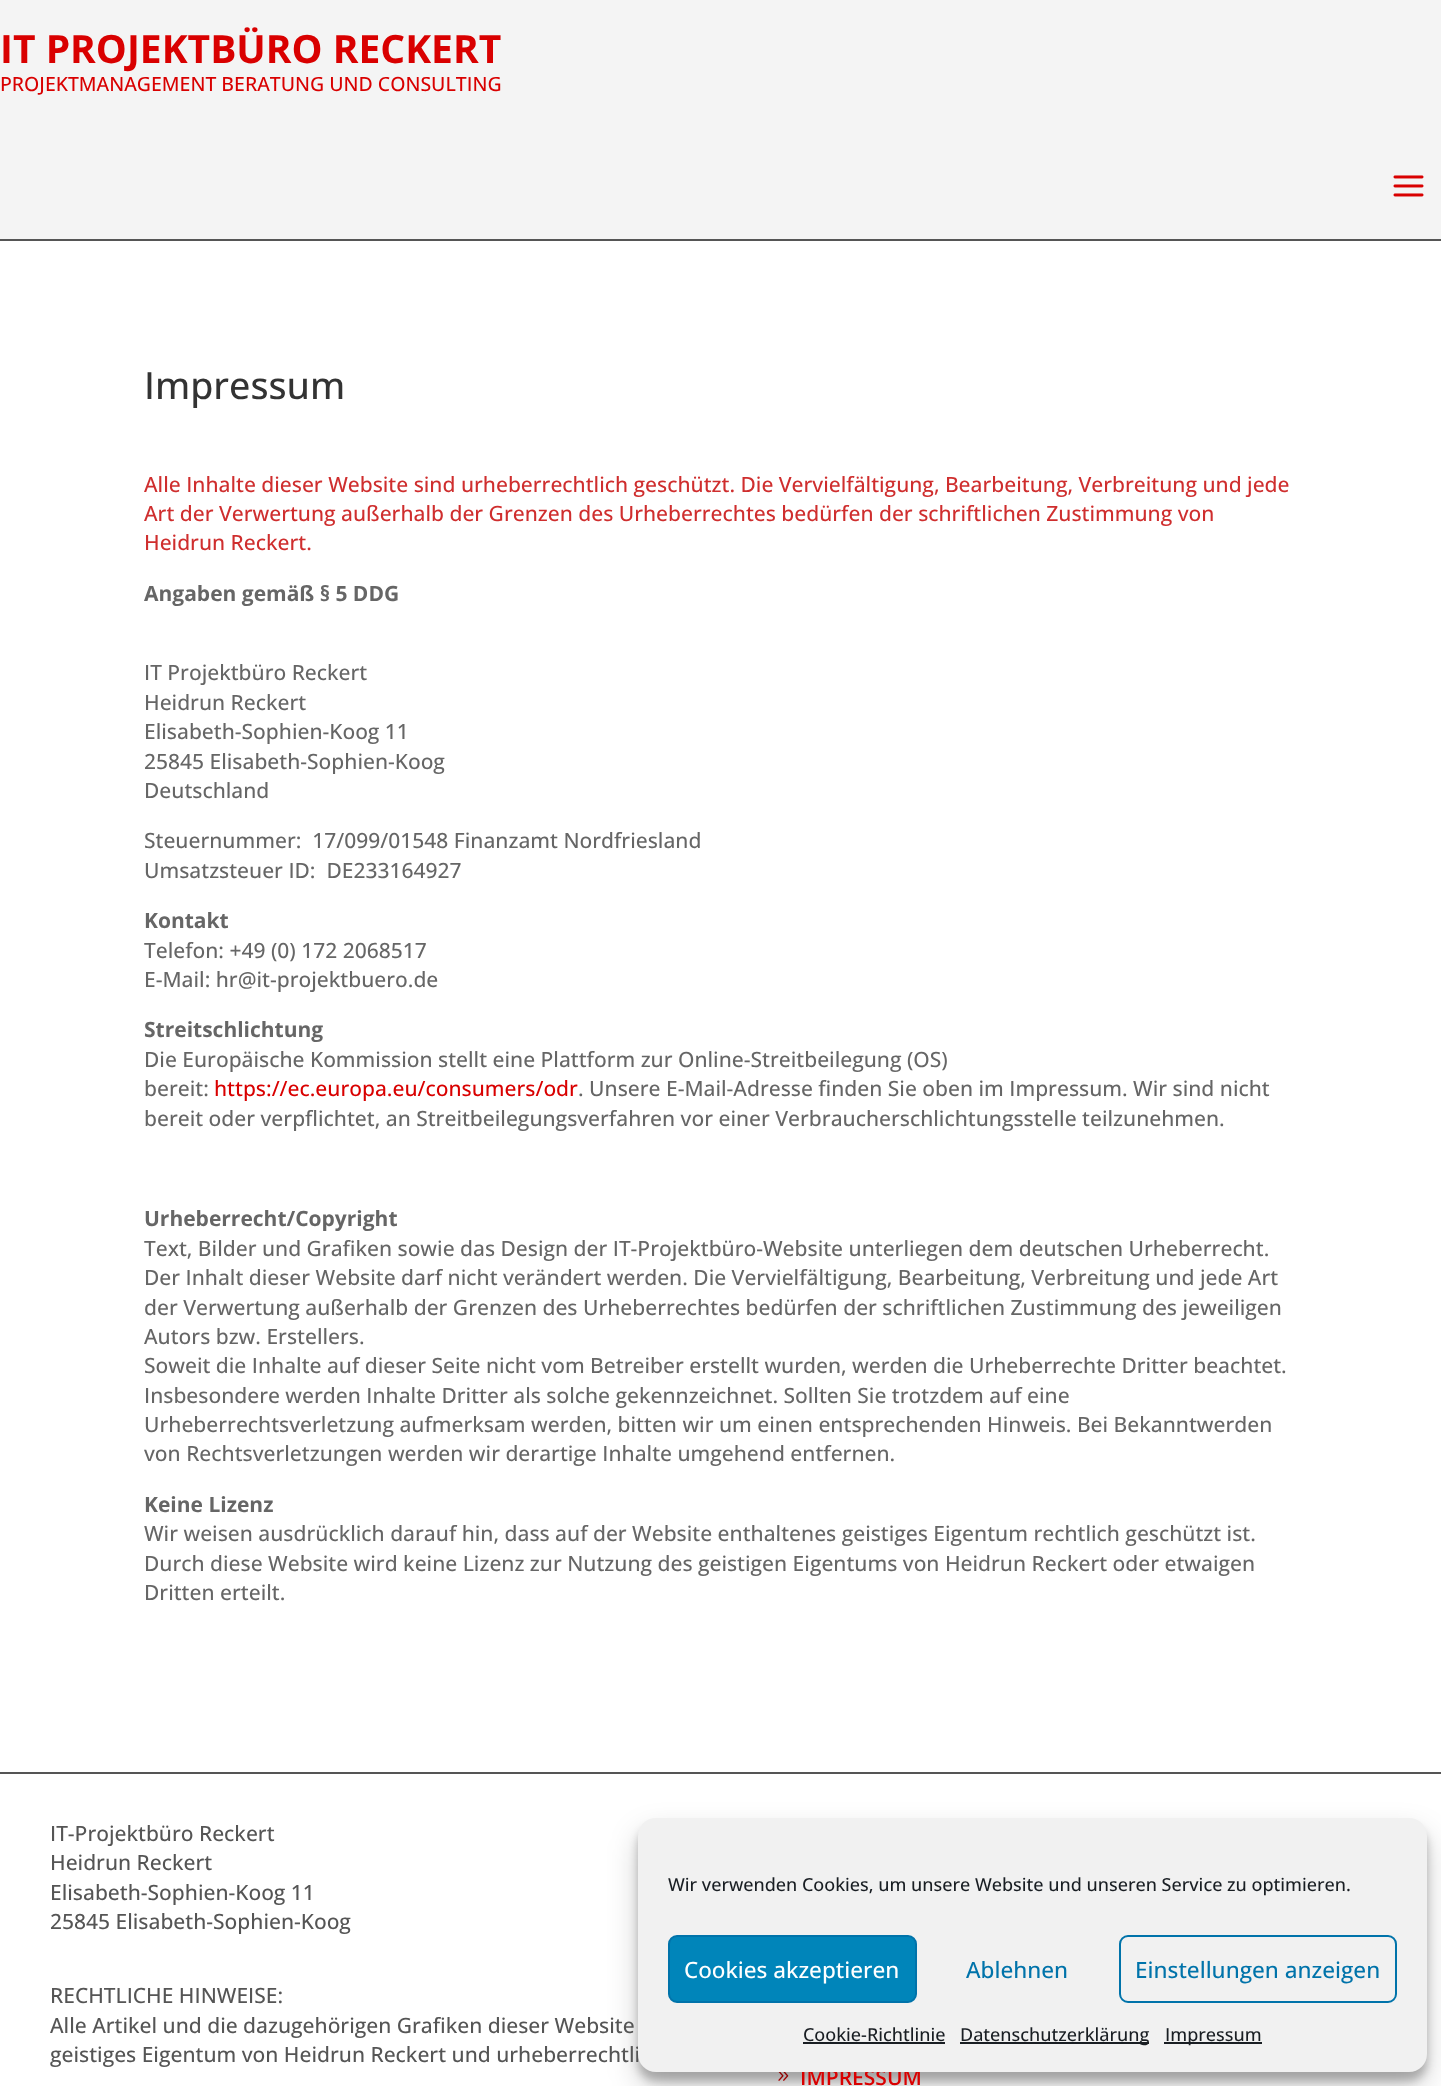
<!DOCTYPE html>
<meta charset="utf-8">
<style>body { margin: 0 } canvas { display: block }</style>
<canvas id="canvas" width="1441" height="2086"></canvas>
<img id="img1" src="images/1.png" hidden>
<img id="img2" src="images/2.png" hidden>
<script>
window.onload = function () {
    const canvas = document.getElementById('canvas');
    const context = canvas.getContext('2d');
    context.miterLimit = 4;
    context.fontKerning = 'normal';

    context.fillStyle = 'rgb(255, 255, 255)';
    context.fillRect(0, 0, 1441, 2086);
    context.fillStyle = 'rgb(244, 244, 244)';
    context.fillRect(0, 0, 1441, 239);
    context.fillStyle = 'rgb(85, 85, 85)';
    context.fillRect(0, 239, 1441, 2);
    context.drawImage(document.getElementById('img1'), 1393, 175, 31, 22);
    context.fillRect(0, 1772, 1441, 2);
    context.drawImage(document.getElementById('img2'), 778, 2072, 11, 9);
    context.fillStyle = 'rgba(0, 0, 0, 0.23)';
    context.filter = 'blur(4.5px)';
    context.beginPath();
    context.roundRect(638, 1827, 789, 254, 18);
    context.fill();
    context.filter = 'none';
    context.fillStyle = 'rgba(0, 0, 0, 0.19)';
    context.filter = 'blur(15px)';
    context.beginPath();
    context.roundRect(638, 1833, 789, 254, 18);
    context.fill();
    context.filter = 'none';
    context.font = 'bold 39px Open Sans';
    context.fillStyle = 'rgb(217, 0, 0)';
    context.fillText('IT PROJEKTBÜRO RECKERT', 0, 63);
    context.font = '500 19.5px Open Sans';
    context.fillText('PROJEKTMANAGEMENT BERATUNG UND CONSULTING', 0, 91);
    context.font = '500 37.5px Open Sans';
    context.fillStyle = 'rgb(51, 51, 51)';
    context.fillText('Impressum', 144, 399);
    context.font = '500 21px Open Sans';
    context.fillStyle = 'rgb(207, 46, 46)';
    context.fillText('Alle Inhalte dieser Website sind urheberrechtlich geschützt. Die Vervielfältigung, Bearbeitung, Verbreitung und jede', 144, 492);
    context.fillText('Art der Verwertung außerhalb der Grenzen des Urheberrechtes bedürfen der schriftlichen Zustimmung von', 144, 521);
    context.fillText('Heidrun Reckert.', 144, 550);
    context.font = 'bold 21px Open Sans';
    context.fillStyle = 'rgb(102, 102, 102)';
    context.fillText('Angaben gemäß § 5 DDG', 144, 601);
    context.font = '500 21px Open Sans';
    context.fillText('IT Projektbüro Reckert', 144, 680);
    context.fillText('Heidrun Reckert', 144, 710);
    context.fillText('Elisabeth-Sophien-Koog 11', 144, 739);
    context.fillText('25845 Elisabeth-Sophien-Koog', 144, 769);
    context.fillText('Deutschland', 144, 798);
    context.fillText('Steuernummer:  17/099/01548 Finanzamt Nordfriesland', 144, 848);
    context.fillText('Umsatzsteuer ID:  DE233164927', 144, 878);
    context.font = 'bold 21px Open Sans';
    context.fillText('Kontakt', 144, 928);
    context.font = '500 21px Open Sans';
    context.fillText('Telefon: +49 (0) 172 2068517', 144, 958);
    context.fillText('E-Mail: hr@it-projektbuero.de', 144, 987);
    context.font = 'bold 21px Open Sans';
    context.fillText('Streitschlichtung', 144, 1037);
    context.font = '500 21px Open Sans';
    context.fillText('Die Europäische Kommission stellt eine Plattform zur Online-Streitbeilegung (OS)', 144, 1067);
    context.fillText('bereit:', 144, 1096);
    context.fillStyle = 'rgb(217, 0, 0)';
    context.fillText('https://ec.europa.eu/consumers/odr', 214, 1096);
    context.fillStyle = 'rgb(102, 102, 102)';
    context.fillText('. Unsere E-Mail-Adresse finden Sie oben im Impressum. Wir sind nicht', 578, 1096);
    context.fillText('bereit oder verpflichtet, an Streitbeilegungsverfahren vor einer Verbraucherschlichtungsstelle teilzunehmen.', 144, 1126);
    context.font = 'bold 21px Open Sans';
    context.fillText('Urheberrecht/Copyright', 144, 1226);
    context.font = '500 21px Open Sans';
    context.fillText('Text, Bilder und Grafiken sowie das Design der IT-Projektbüro-Website unterliegen dem deutschen Urheberrecht.', 144, 1256);
    context.fillText('Der Inhalt dieser Website darf nicht verändert werden. Die Vervielfältigung, Bearbeitung, Verbreitung und jede Art', 144, 1285);
    context.fillText('der Verwertung außerhalb der Grenzen des Urheberrechtes bedürfen der schriftlichen Zustimmung des jeweiligen', 144, 1315);
    context.fillText('Autors bzw. Erstellers.', 144, 1344);
    context.fillText('Soweit die Inhalte auf dieser Seite nicht vom Betreiber erstellt wurden, werden die Urheberrechte Dritter beachtet.', 144, 1373);
    context.fillText('Insbesondere werden Inhalte Dritter als solche gekennzeichnet. Sollten Sie trotzdem auf eine', 144, 1403);
    context.fillText('Urheberrechtsverletzung aufmerksam werden, bitten wir um einen entsprechenden Hinweis. Bei Bekanntwerden', 144, 1432);
    context.fillText('von Rechtsverletzungen werden wir derartige Inhalte umgehend entfernen.', 144, 1461);
    context.font = 'bold 21px Open Sans';
    context.fillText('Keine Lizenz', 144, 1512);
    context.font = '500 21px Open Sans';
    context.fillText('Wir weisen ausdrücklich darauf hin, dass auf der Website enthaltenes geistiges Eigentum rechtlich geschützt ist.', 144, 1541);
    context.fillText('Durch diese Website wird keine Lizenz zur Nutzung des geistigen Eigentums von Heidrun Reckert oder etwaigen', 144, 1571);
    context.fillText('Dritten erteilt.', 144, 1600);
    context.fillStyle = 'rgb(85, 85, 85)';
    context.fillText('IT-Projektbüro Reckert', 50, 1841);
    context.fillText('Heidrun Reckert', 50, 1870);
    context.fillText('Elisabeth-Sophien-Koog 11', 50, 1900);
    context.fillText('25845 Elisabeth-Sophien-Koog', 50, 1929);
    context.fillText('RECHTLICHE HINWEISE:', 50, 2003);
    context.fillText('Alle Artikel und die dazugehörigen Grafiken dieser Website', 50, 2033);
    context.fillText('geistiges Eigentum von Heidrun Reckert und urheberrechtli', 50, 2062);
    context.font = '600 21px Open Sans';
    context.fillStyle = 'rgb(217, 0, 0)';
    context.fillText('IMPRESSUM', 800, 2085);
    context.fillStyle = 'rgb(241, 241, 241)';
    context.beginPath();
    context.roundRect(638, 1818, 789, 254, 18);
    context.fill();
    context.font = '500 18px Open Sans';
    context.fillStyle = 'rgb(25, 30, 35)';
    context.fillText('Wir verwenden Cookies, um unsere Website und unseren Service zu optimieren.', 668, 1891);
    context.fillStyle = 'rgb(0, 133, 186)';
    context.beginPath();
    context.roundRect(669, 1936, 247, 66, 8);
    context.fill();
    context.strokeStyle = 'rgb(0, 115, 170)';
    context.lineWidth = 2;
    context.stroke();
    context.font = '500 22.5px Open Sans';
    context.fillStyle = 'rgb(255, 255, 255)';
    context.fillText('Cookies akzeptieren', 684, 1978);
    context.fillStyle = 'rgb(0, 115, 170)';
    context.fillText('Ablehnen', 966, 1978);
    context.beginPath();
    context.roundRect(1120, 1936, 276, 66, 8);
    context.stroke();
    context.fillText('Einstellungen anzeigen', 1135, 1978);
    context.font = '500 18px Open Sans';
    context.fillStyle = 'rgb(25, 30, 35)';
    context.fillText('Cookie-Richtlinie', 803, 2041);
    context.fillRect(803, 2042, 142, 2);
    context.fillRect(960, 2042, 189, 2);
    context.fillText('Datenschutzerklärung', 960, 2041);
    context.fillRect(1164, 2042, 98, 2);
    context.fillText('Impressum', 1165, 2041);
};
</script>
